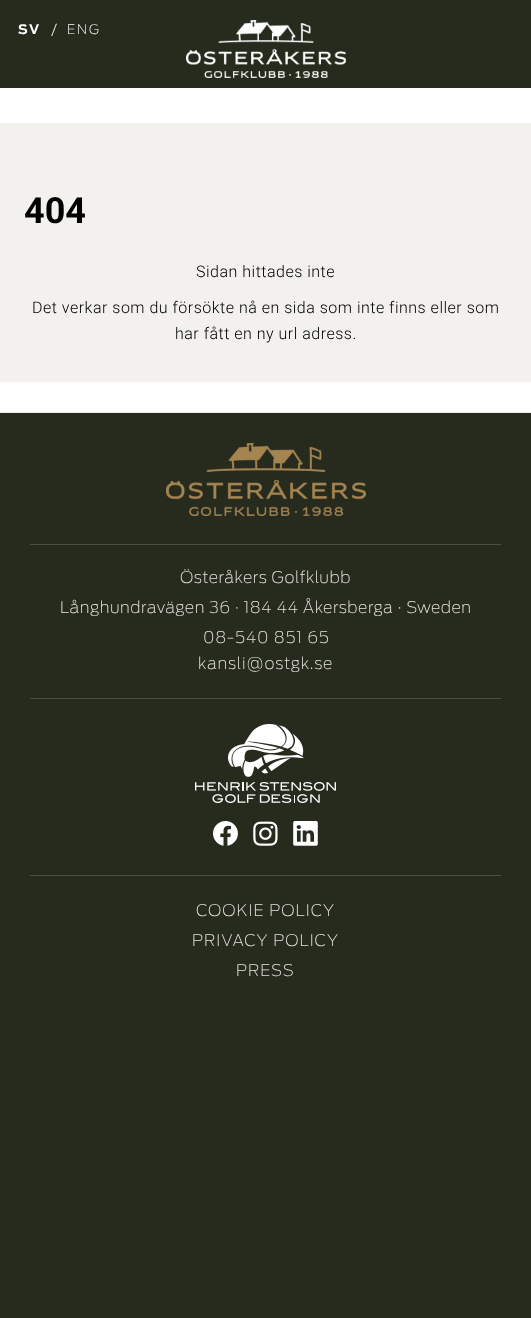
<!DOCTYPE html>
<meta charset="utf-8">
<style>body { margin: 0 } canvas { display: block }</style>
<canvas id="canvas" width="531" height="1318"></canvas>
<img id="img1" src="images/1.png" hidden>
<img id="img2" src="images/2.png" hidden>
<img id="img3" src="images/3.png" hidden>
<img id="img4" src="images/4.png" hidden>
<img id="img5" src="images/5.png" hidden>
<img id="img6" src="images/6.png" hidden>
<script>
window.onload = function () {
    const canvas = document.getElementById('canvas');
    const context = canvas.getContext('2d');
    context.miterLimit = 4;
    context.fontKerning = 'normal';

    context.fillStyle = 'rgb(38, 43, 30)';
    context.fillRect(0, 0, 531, 1318);
    context.drawImage(document.getElementById('img1'), 186, 20, 160, 58);
    context.fillStyle = 'rgb(255, 255, 255)';
    context.fillRect(0, 88, 531, 324);
    context.fillStyle = 'rgb(242, 241, 238)';
    context.fillRect(0, 123, 531, 259);
    context.fillStyle = 'rgb(235, 235, 235)';
    context.fillRect(0, 412, 531, 1);
    context.fillStyle = 'rgb(73, 77, 66)';
    context.fillRect(30, 544, 471, 1);
    context.drawImage(document.getElementById('img2'), 166, 443, 200, 73);
    context.fillRect(30, 698, 471, 1);
    context.fillRect(30, 875, 471, 1);
    context.drawImage(document.getElementById('img3'), 195, 724, 141, 79);
    context.drawImage(document.getElementById('img4'), 213, 821, 25, 25);
    context.drawImage(document.getElementById('img5'), 253, 821, 25, 25);
    context.drawImage(document.getElementById('img6'), 293, 821, 25, 25);
    context.letterSpacing = '2px';
    context.font = 'bold 13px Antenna';
    context.fillStyle = 'rgb(255, 255, 255)';
    context.fillText('SV', 18, 34);
    context.letterSpacing = '0px';
    context.font = '300 16px Roboto';
    context.fillText('/', 51, 35);
    context.letterSpacing = '2px';
    context.font = '300 13px Antenna';
    context.fillText('ENG', 67, 34);
    context.letterSpacing = '0px';
    context.font = 'bold 36px Roboto';
    context.fillStyle = 'rgb(0, 0, 0)';
    context.fillText('404', 24, 223);
    context.letterSpacing = '0.5px';
    context.font = '300 16px Roboto';
    context.fillText('Sidan hittades inte', 196, 277);
    context.fillText('Det verkar som du försökte nå en sida som inte finns eller som', 32, 313);
    context.fillText('har fått en ny url adress.', 175, 339);
    context.font = '300 16px Antenna';
    context.fillStyle = 'rgb(227, 225, 221)';
    context.fillText('Österåkers Golfklubb', 180, 583);
    context.fillText('Långhundravägen 36 · 184 44 Åkersberga · Sweden', 60, 613);
    context.letterSpacing = '0.75px';
    context.fillText('08-540 851 65', 203, 643);
    context.fillText('kansli@ostgk.se', 198, 669);
    context.letterSpacing = '1px';
    context.fillText('COOKIE POLICY', 196, 916);
    context.fillText('PRIVACY POLICY', 192, 946);
    context.fillText('PRESS', 236, 976);
};
</script>
